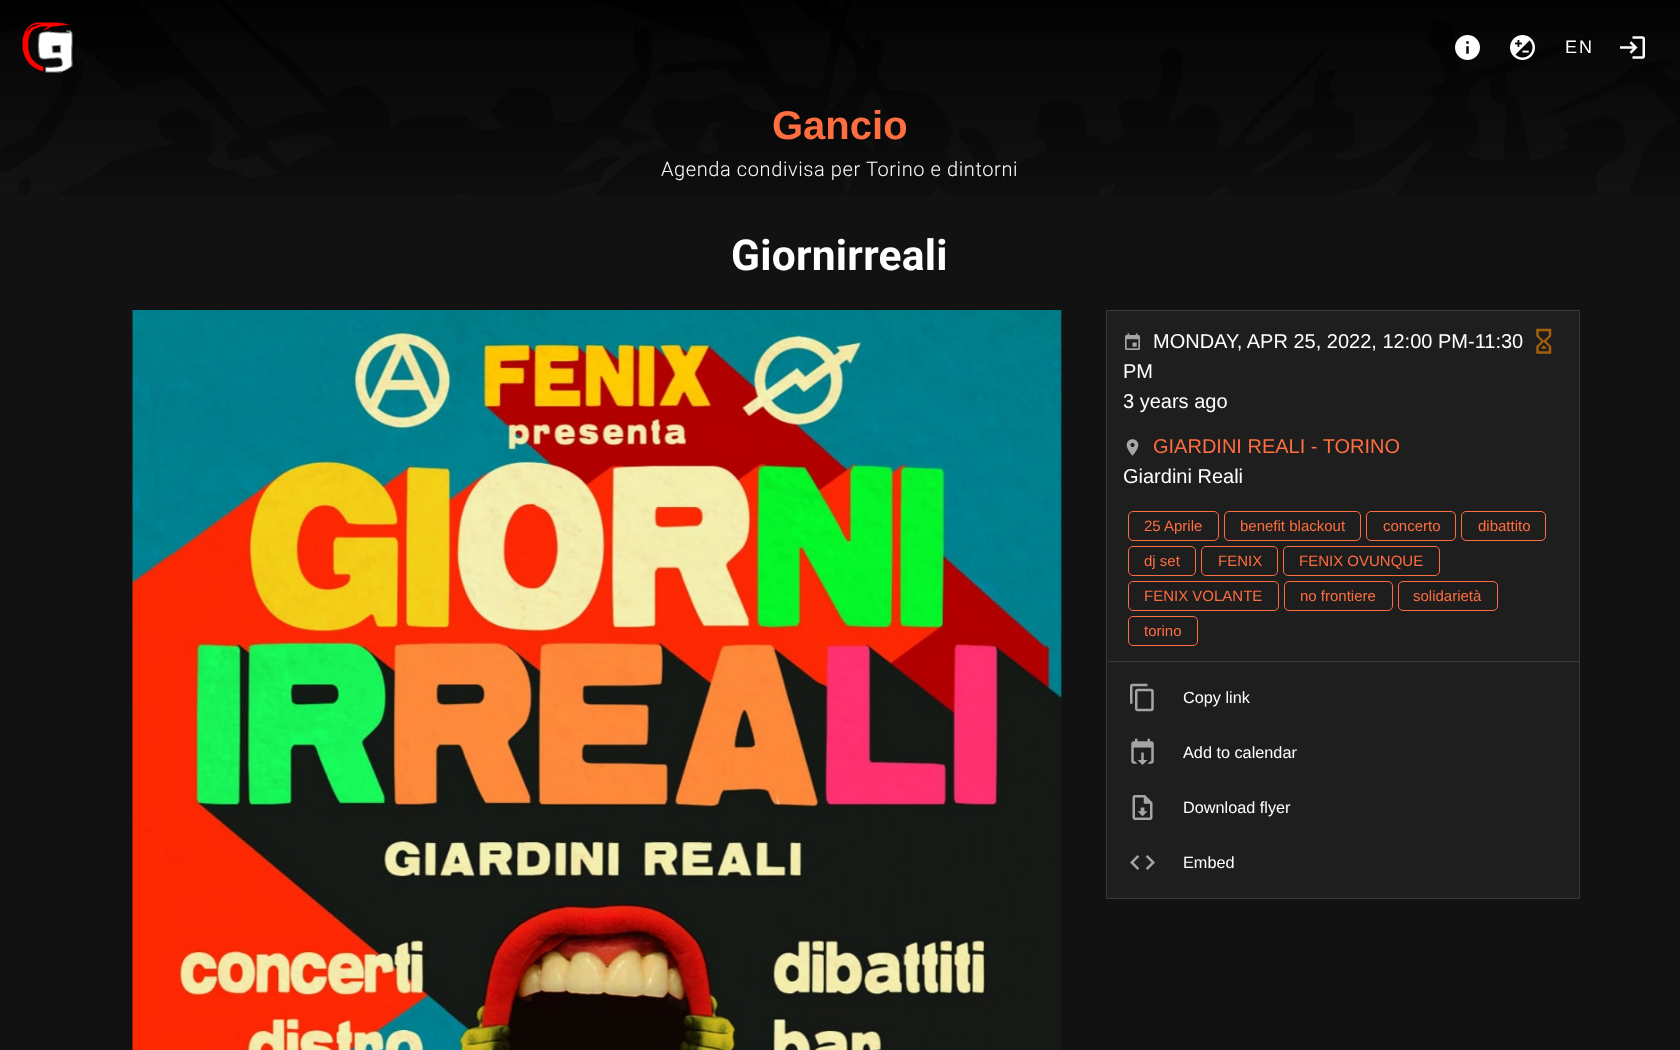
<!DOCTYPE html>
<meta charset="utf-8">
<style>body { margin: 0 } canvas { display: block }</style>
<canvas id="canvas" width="1680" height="1050"></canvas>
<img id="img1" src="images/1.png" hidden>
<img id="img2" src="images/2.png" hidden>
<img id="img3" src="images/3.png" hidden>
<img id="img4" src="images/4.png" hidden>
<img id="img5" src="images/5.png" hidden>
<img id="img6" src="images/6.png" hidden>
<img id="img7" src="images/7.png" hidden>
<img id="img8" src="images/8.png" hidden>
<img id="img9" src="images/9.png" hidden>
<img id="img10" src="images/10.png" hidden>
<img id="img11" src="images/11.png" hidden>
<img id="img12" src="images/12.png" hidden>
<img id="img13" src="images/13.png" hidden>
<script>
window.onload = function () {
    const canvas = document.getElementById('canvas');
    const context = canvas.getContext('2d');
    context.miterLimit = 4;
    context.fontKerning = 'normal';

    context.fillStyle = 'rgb(18, 18, 18)';
    context.fillRect(0, 0, 1680, 1050);
    context.drawImage(document.getElementById('img1'), 0, 0, 1680, 195);
    context.drawImage(document.getElementById('img2'), 22, 22, 51, 51);
    context.drawImage(document.getElementById('img3'), 1455, 35, 25, 25);
    context.drawImage(document.getElementById('img4'), 1510, 35, 25, 25);
    context.drawImage(document.getElementById('img5'), 1620, 36, 25, 23);
    context.drawImage(document.getElementById('img6'), 132, 310, 930, 740);
    context.fillStyle = 'rgb(30, 30, 30)';
    context.beginPath();
    context.rect(1106.5, 310.5, 473, 588);
    context.fill();
    context.strokeStyle = 'rgb(57, 57, 57)';
    context.stroke();
    context.drawImage(document.getElementById('img7'), 1125, 333, 15, 17);
    context.drawImage(document.getElementById('img8'), 1536, 328, 16, 26);
    context.drawImage(document.getElementById('img9'), 1126, 439, 13, 17);
    context.beginPath();
    context.roundRect(1128.5, 511.5, 90, 29, 4.5);
    context.strokeStyle = 'rgb(255, 110, 64)';
    context.stroke();
    context.beginPath();
    context.roundRect(1224.5, 511.5, 136, 29, 4.5);
    context.stroke();
    context.beginPath();
    context.roundRect(1366.5, 511.5, 89, 29, 4.5);
    context.stroke();
    context.beginPath();
    context.roundRect(1461.5, 511.5, 84, 29, 4.5);
    context.stroke();
    context.beginPath();
    context.roundRect(1128.5, 546.5, 67, 29, 4.5);
    context.stroke();
    context.beginPath();
    context.roundRect(1201.5, 546.5, 76, 29, 4.5);
    context.stroke();
    context.beginPath();
    context.roundRect(1283.5, 546.5, 156, 29, 4.5);
    context.stroke();
    context.beginPath();
    context.roundRect(1128.5, 581.5, 150, 29, 4.5);
    context.stroke();
    context.beginPath();
    context.roundRect(1284.5, 581.5, 108, 29, 4.5);
    context.stroke();
    context.beginPath();
    context.roundRect(1398.5, 581.5, 99, 29, 4.5);
    context.stroke();
    context.beginPath();
    context.roundRect(1128.5, 616.5, 69, 29, 4.5);
    context.stroke();
    context.fillStyle = 'rgb(57, 57, 57)';
    context.fillRect(1108, 661, 471, 1);
    context.drawImage(document.getElementById('img10'), 1130, 683, 24, 29);
    context.drawImage(document.getElementById('img11'), 1131, 738, 23, 27);
    context.drawImage(document.getElementById('img12'), 1132, 795, 21, 25);
    context.drawImage(document.getElementById('img13'), 1130, 855, 25, 15);
    context.letterSpacing = '2px';
    context.font = '18px Liberation Sans';
    context.fillStyle = 'rgb(255, 255, 255)';
    context.fillText('EN', 1565, 53);
    context.letterSpacing = '0px';
    context.font = 'bold 40px Liberation Sans';
    context.fillStyle = 'rgb(255, 110, 64)';
    context.fillText('Gancio', 772, 139);
    context.letterSpacing = '0.6px';
    context.font = '300 20px Roboto';
    context.fillStyle = 'rgb(255, 255, 255)';
    context.fillText('Agenda condivisa per Torino e dintorni', 661, 176);
    context.letterSpacing = '0.25px';
    context.font = 'bold 42.5px Roboto';
    context.fillText('Giornirreali', 731, 270);
    context.letterSpacing = '0px';
    context.font = '20px Liberation Sans';
    context.fillText('MONDAY, APR 25, 2022, 12:00 PM-11:30', 1153, 348);
    context.fillText('PM', 1123, 378);
    context.fillText('3 years ago', 1123, 408);
    context.fillStyle = 'rgb(255, 110, 64)';
    context.fillText('GIARDINI REALI - TORINO', 1153, 453);
    context.fillStyle = 'rgb(255, 255, 255)';
    context.fillText('Giardini Reali', 1123, 483);
    context.font = '15px Liberation Sans';
    context.fillStyle = 'rgb(255, 110, 64)';
    context.fillText('25 Aprile', 1144, 531);
    context.fillText('benefit blackout', 1240, 531);
    context.fillText('concerto', 1383, 531);
    context.fillText('dibattito', 1478, 531);
    context.fillText('dj set', 1144, 566);
    context.fillText('FENIX', 1218, 566);
    context.fillText('FENIX OVUNQUE', 1299, 566);
    context.fillText('FENIX VOLANTE', 1144, 601);
    context.fillText('no frontiere', 1300, 601);
    context.fillText('solidarietà', 1413, 601);
    context.fillText('torino', 1144, 636);
    context.font = '16.25px Liberation Sans';
    context.fillStyle = 'rgb(255, 255, 255)';
    context.fillText('Copy link', 1183, 703);
    context.fillText('Add to calendar', 1183, 758);
    context.fillText('Download flyer', 1183, 813);
    context.fillText('Embed', 1183, 868);
};
</script>
